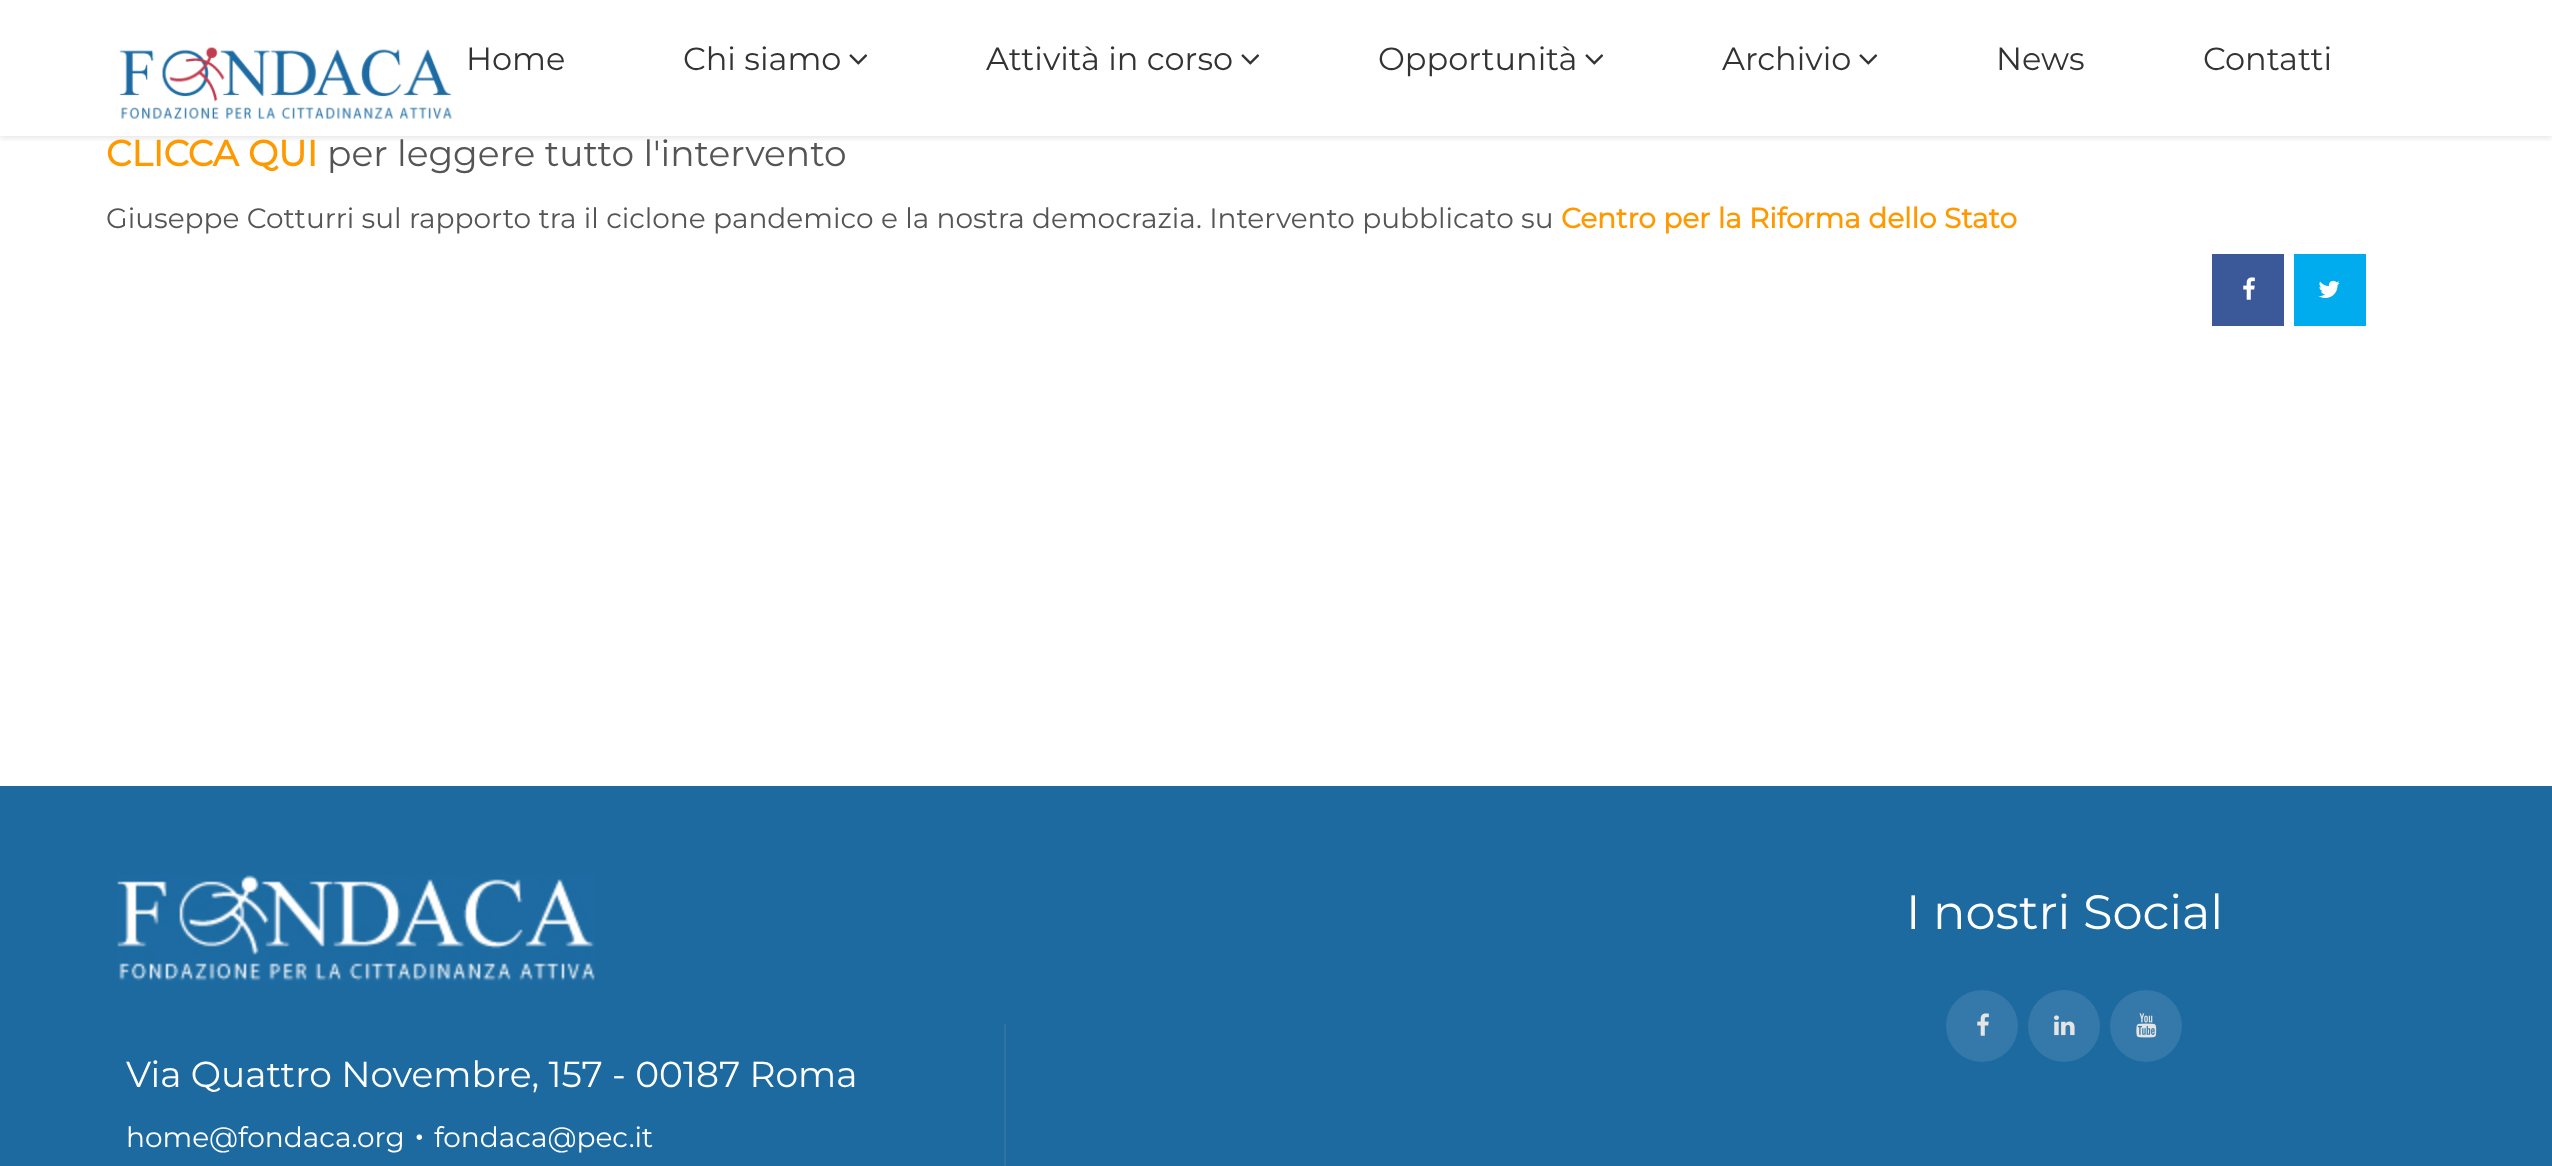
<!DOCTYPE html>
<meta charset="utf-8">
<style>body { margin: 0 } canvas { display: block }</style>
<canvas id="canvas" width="2552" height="1166"></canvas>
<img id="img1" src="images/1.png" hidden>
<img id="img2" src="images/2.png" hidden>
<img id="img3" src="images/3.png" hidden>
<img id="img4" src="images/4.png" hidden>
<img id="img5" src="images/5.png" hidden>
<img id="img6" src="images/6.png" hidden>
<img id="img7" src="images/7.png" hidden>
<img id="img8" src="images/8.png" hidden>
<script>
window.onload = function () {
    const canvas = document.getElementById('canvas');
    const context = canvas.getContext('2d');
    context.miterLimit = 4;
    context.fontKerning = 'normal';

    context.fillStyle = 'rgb(255, 255, 255)';
    context.fillRect(0, 0, 2552, 1166);
    context.save();
    context.beginPath();
    context.rect(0, 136, 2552, 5);
    context.clip();
    context.fillStyle = 'rgba(0, 0, 0, 0.1)';
    context.filter = 'blur(3px)';
    context.beginPath();
    context.rect(0, 2, 2552, 136);
    context.fill();
    context.filter = 'none';
    context.restore();
    context.drawImage(document.getElementById('img1'), 119, 47, 334, 73);
    context.drawImage(document.getElementById('img2'), 849, 54, 19, 11);
    context.drawImage(document.getElementById('img2'), 1241, 54, 19, 11);
    context.drawImage(document.getElementById('img2'), 1585, 54, 19, 11);
    context.drawImage(document.getElementById('img2'), 1859, 54, 19, 11);
    context.fillStyle = 'rgb(59, 89, 152)';
    context.fillRect(2212, 254, 72, 72);
    context.drawImage(document.getElementById('img3'), 2243, 277, 12, 23);
    context.fillStyle = 'rgb(0, 172, 237)';
    context.fillRect(2294, 254, 72, 72);
    context.drawImage(document.getElementById('img4'), 2318, 280, 22, 18);
    context.fillStyle = 'rgb(29, 106, 160)';
    context.fillRect(0, 786, 2552, 380);
    context.fillStyle = 'rgb(52, 121, 170)';
    context.beginPath();
    context.arc(1982, 1026, 36, 0, 2 * Math.PI);
    context.fill();
    context.drawImage(document.getElementById('img5'), 1977, 1013, 12, 23);
    context.beginPath();
    context.arc(2064, 1026, 36, 0, 2 * Math.PI);
    context.fill();
    context.drawImage(document.getElementById('img6'), 2054, 1015, 21, 21);
    context.beginPath();
    context.arc(2146, 1026, 36, 0, 2 * Math.PI);
    context.fill();
    context.drawImage(document.getElementById('img7'), 2136, 1013, 21, 25);
    context.drawImage(document.getElementById('img8'), 117, 875, 478, 108);
    context.fillStyle = 'rgb(45, 116, 167)';
    context.fillRect(1004, 1024, 2, 142);
    context.font = '100 32px Montserrat';
    context.fillStyle = 'rgb(51, 51, 51)';
    context.fillText('Home', 466, 70);
    context.fillText('Chi siamo', 683, 70);
    context.fillText('Attività in corso', 986, 70);
    context.fillText('Opportunità', 1378, 70);
    context.fillText('Archivio', 1722, 70);
    context.fillText('News', 1996, 70);
    context.fillText('Contatti', 2203, 70);
    context.font = 'bold 36px Montserrat';
    context.fillStyle = 'rgb(255, 153, 0)';
    context.fillText('CLICCA QUI', 106, 166);
    context.font = '100 36px Montserrat';
    context.fillStyle = 'rgb(85, 85, 85)';
    context.fillText('per leggere tutto l\'intervento', 327, 166);
    context.font = '100 28px Montserrat';
    context.fillText('Giuseppe Cotturri sul rapporto tra il ciclone pandemico e la nostra democrazia. Intervento pubblicato su', 106, 228);
    context.font = 'bold 28px Montserrat';
    context.fillStyle = 'rgb(255, 153, 0)';
    context.fillText('Centro per la Riforma dello Stato', 1561, 228);
    context.font = '100 48px Montserrat';
    context.fillStyle = 'rgb(255, 255, 255)';
    context.fillText('I nostri Social', 1906, 929);
    context.font = '100 36px Montserrat';
    context.fillText('Via Quattro Novembre, 157 - 00187 Roma', 126, 1087);
    context.font = '100 28px Montserrat';
    context.fillText('home@fondaca.org', 126, 1147);
    context.font = '100 36px Montserrat';
    context.fillText('•', 414, 1147);
    context.font = '100 28px Montserrat';
    context.fillText('fondaca@pec.it', 434, 1147);
};
</script>
